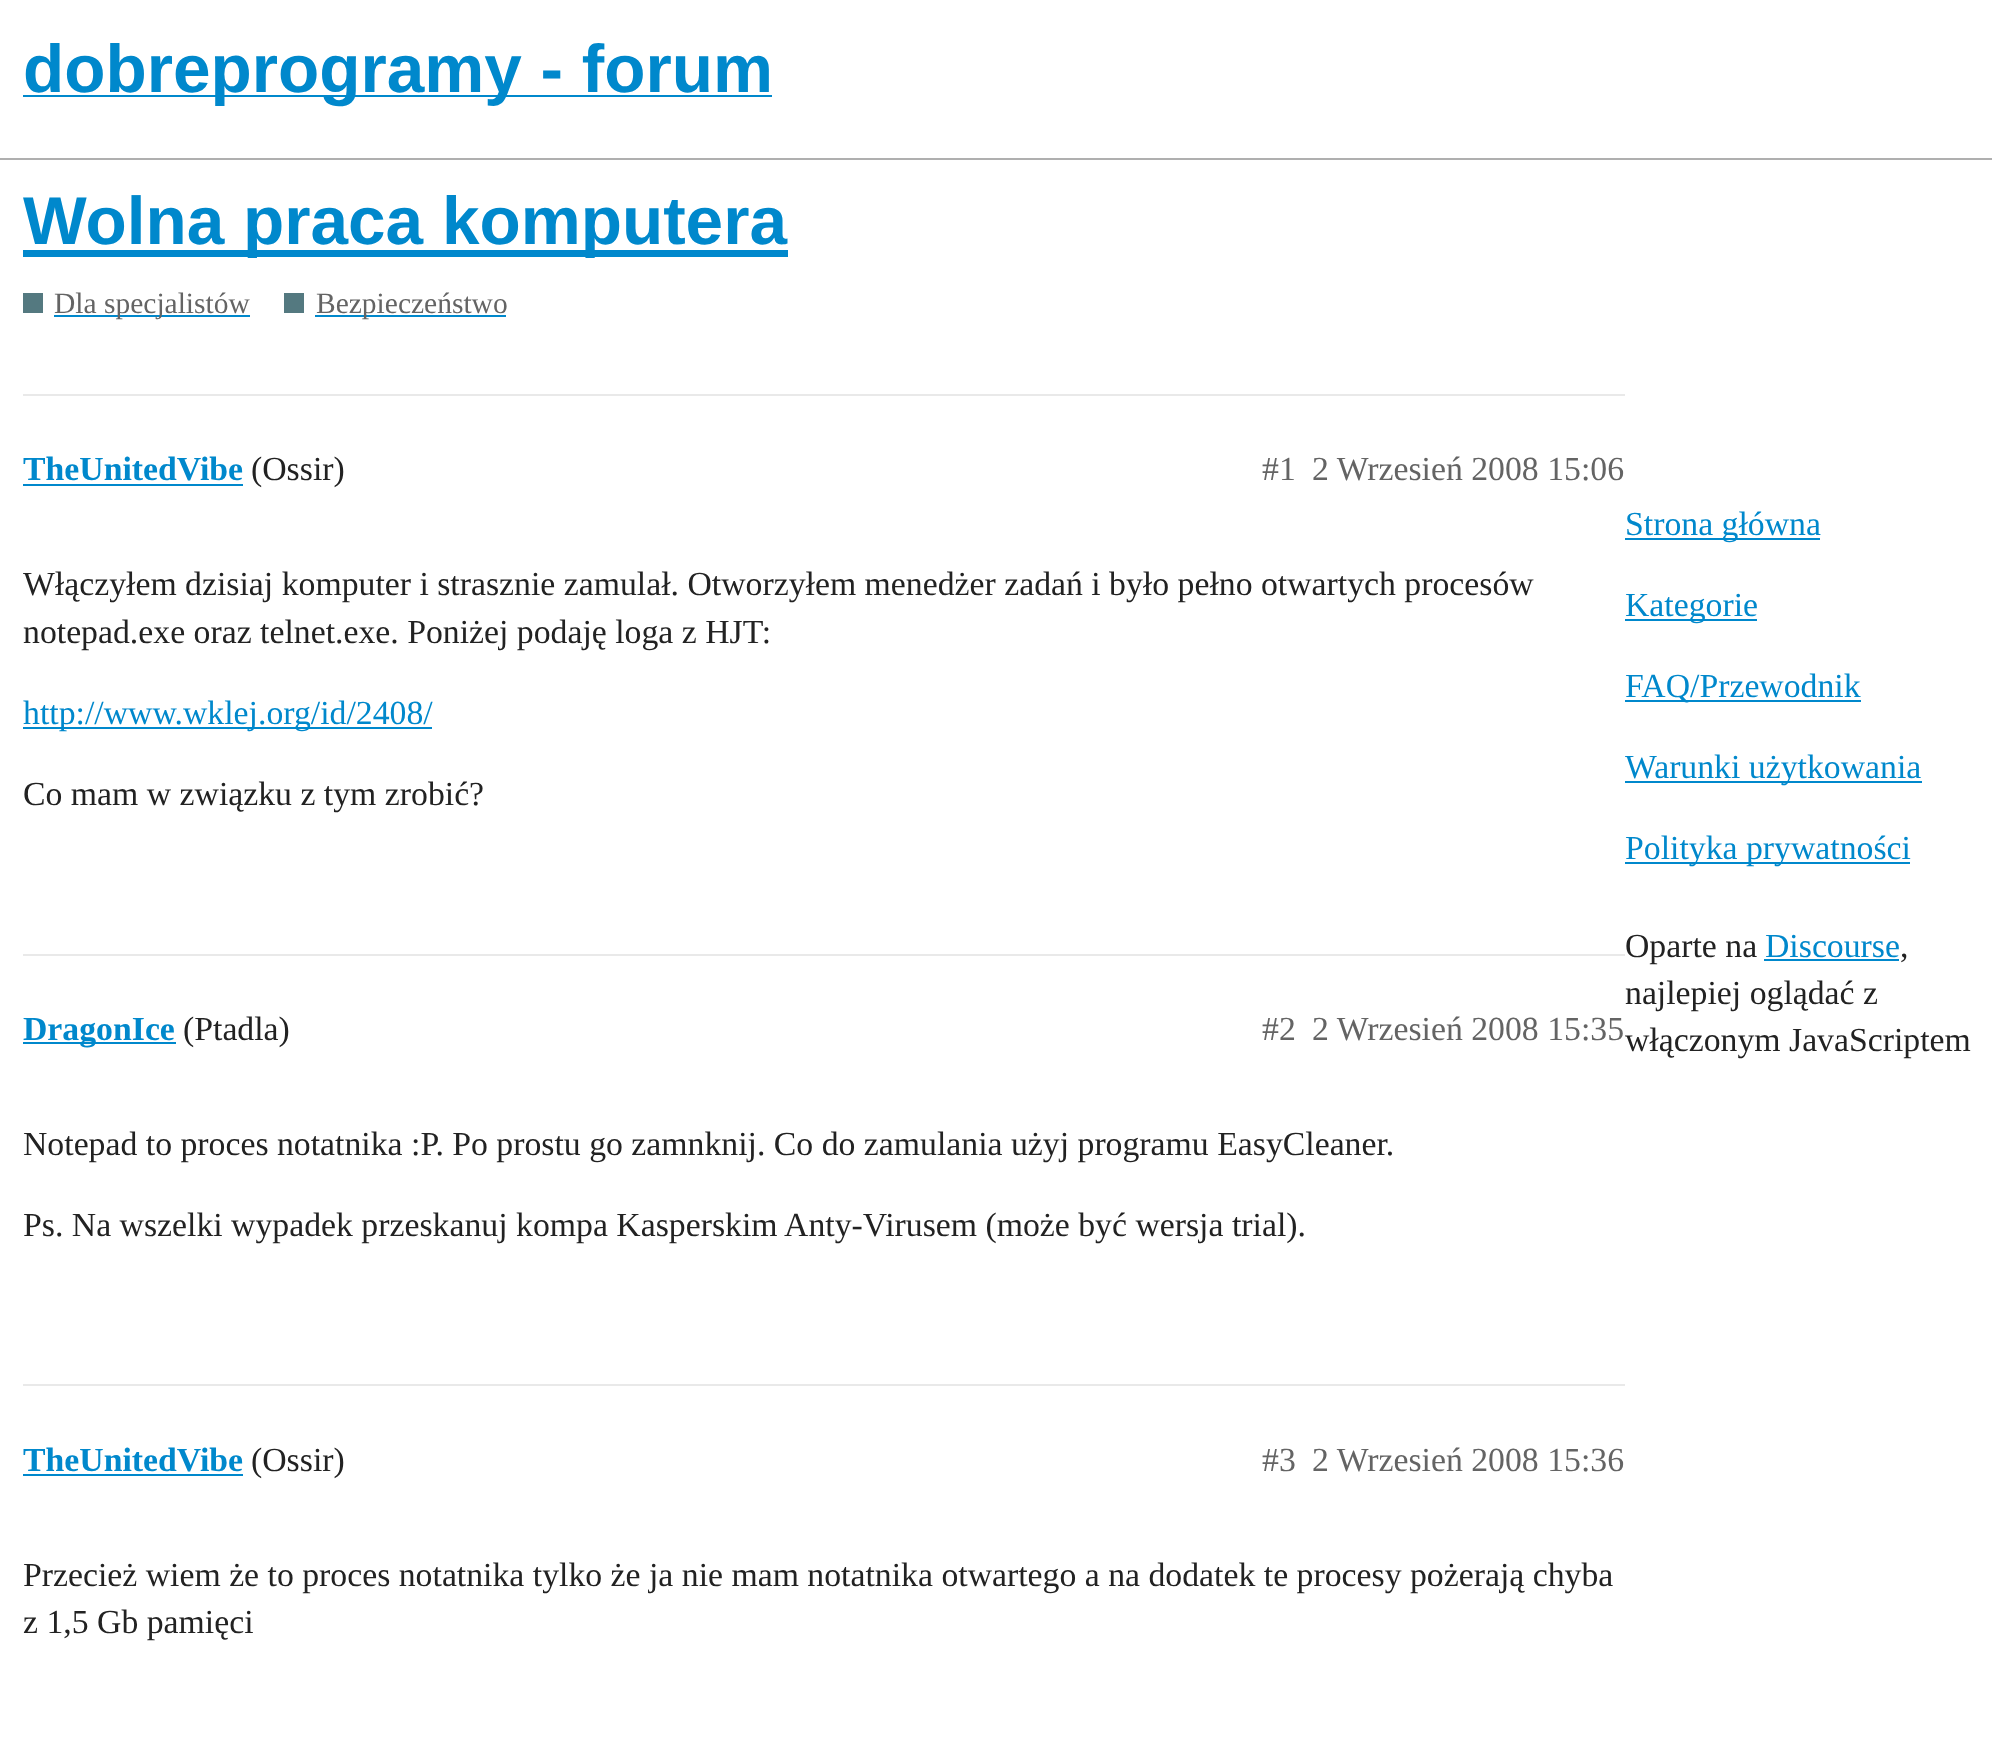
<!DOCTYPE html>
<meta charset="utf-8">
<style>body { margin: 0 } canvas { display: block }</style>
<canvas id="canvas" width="1992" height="1760"></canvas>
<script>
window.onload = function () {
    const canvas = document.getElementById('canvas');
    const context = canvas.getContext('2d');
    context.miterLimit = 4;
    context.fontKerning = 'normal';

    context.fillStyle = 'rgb(255, 255, 255)';
    context.fillRect(0, 0, 1992, 1760);
    context.fillStyle = 'rgb(175, 175, 175)';
    context.fillRect(0, 158, 1992, 2);
    context.fillStyle = 'rgb(0, 136, 204)';
    context.fillRect(23, 95, 749, 2);
    context.fillRect(23, 250, 765, 7);
    context.fillStyle = 'rgb(84, 121, 128)';
    context.fillRect(23, 293, 20, 20);
    context.fillStyle = 'rgb(0, 136, 204)';
    context.fillRect(54, 315, 196, 2);
    context.fillStyle = 'rgb(84, 121, 128)';
    context.fillRect(284, 293, 20, 20);
    context.fillStyle = 'rgb(0, 136, 204)';
    context.fillRect(315, 315, 191, 2);
    context.fillStyle = 'rgb(233, 233, 233)';
    context.fillRect(23, 394, 1602, 2);
    context.fillStyle = 'rgb(0, 136, 204)';
    context.fillRect(23, 484, 220, 2);
    context.fillRect(23, 727, 409, 2);
    context.fillStyle = 'rgb(233, 233, 233)';
    context.fillRect(23, 954, 1602, 2);
    context.fillStyle = 'rgb(0, 136, 204)';
    context.fillRect(23, 1042, 153, 2);
    context.fillStyle = 'rgb(233, 233, 233)';
    context.fillRect(23, 1384, 1602, 2);
    context.fillStyle = 'rgb(0, 136, 204)';
    context.fillRect(23, 1474, 220, 2);
    context.fillRect(1625, 538, 195, 2);
    context.fillRect(1625, 619, 132, 2);
    context.fillRect(1625, 700, 236, 2);
    context.fillRect(1625, 781, 297, 2);
    context.fillRect(1625, 862, 285, 2);
    context.fillRect(1764, 959, 135, 2);
    context.font = 'bold 67.5px Liberation Sans';
    context.fillText('dobreprogramy - forum', 23, 92);
    context.fillText('Wolna praca komputera', 23, 244);
    context.font = '29.5px Liberation Serif';
    context.fillStyle = 'rgb(100, 100, 100)';
    context.fillText('Dla specjalistów', 54, 313);
    context.fillText('Bezpieczeństwo', 316, 313);
    context.font = 'bold 33.75px Liberation Serif';
    context.fillStyle = 'rgb(0, 136, 204)';
    context.fillText('TheUnitedVibe', 23, 480);
    context.font = '33.75px Liberation Serif';
    context.fillStyle = 'rgb(34, 34, 34)';
    context.fillText('(Ossir)', 251, 480);
    context.fillStyle = 'rgb(100, 100, 100)';
    context.fillText('#1', 1262, 480);
    context.fillText('2 Wrzesień 2008 15:06', 1312, 480);
    context.fillStyle = 'rgb(34, 34, 34)';
    context.fillText('Włączyłem dzisiaj komputer i strasznie zamulał. Otworzyłem menedżer zadań i było pełno otwartych procesów', 23, 595);
    context.fillText('notepad.exe oraz telnet.exe. Poniżej podaję loga z HJT:', 23, 643);
    context.fillStyle = 'rgb(0, 136, 204)';
    context.fillText('http://www.wklej.org/id/2408/', 23, 724);
    context.fillStyle = 'rgb(34, 34, 34)';
    context.fillText('Co mam w związku z tym zrobić?', 23, 805);
    context.font = 'bold 33.75px Liberation Serif';
    context.fillStyle = 'rgb(0, 136, 204)';
    context.fillText('DragonIce', 23, 1040);
    context.font = '33.75px Liberation Serif';
    context.fillStyle = 'rgb(34, 34, 34)';
    context.fillText('(Ptadla)', 183, 1040);
    context.fillStyle = 'rgb(100, 100, 100)';
    context.fillText('#2', 1262, 1040);
    context.fillText('2 Wrzesień 2008 15:35', 1312, 1040);
    context.fillStyle = 'rgb(34, 34, 34)';
    context.fillText('Notepad to proces notatnika :P. Po prostu go zamnknij. Co do zamulania użyj programu EasyCleaner.', 23, 1155);
    context.fillText('Ps. Na wszelki wypadek przeskanuj kompa Kasperskim Anty-Virusem (może być wersja trial).', 23, 1236);
    context.font = 'bold 33.75px Liberation Serif';
    context.fillStyle = 'rgb(0, 136, 204)';
    context.fillText('TheUnitedVibe', 23, 1471);
    context.font = '33.75px Liberation Serif';
    context.fillStyle = 'rgb(34, 34, 34)';
    context.fillText('(Ossir)', 251, 1471);
    context.fillStyle = 'rgb(100, 100, 100)';
    context.fillText('#3', 1262, 1471);
    context.fillText('2 Wrzesień 2008 15:36', 1312, 1471);
    context.fillStyle = 'rgb(34, 34, 34)';
    context.fillText('Przecież wiem że to proces notatnika tylko że ja nie mam notatnika otwartego a na dodatek te procesy pożerają chyba', 23, 1586);
    context.fillText('z 1,5 Gb pamięci', 23, 1633);
    context.fillStyle = 'rgb(0, 136, 204)';
    context.fillText('Strona główna', 1625, 535);
    context.fillText('Kategorie', 1625, 616);
    context.fillText('FAQ/Przewodnik', 1625, 697);
    context.fillText('Warunki użytkowania', 1625, 778);
    context.fillText('Polityka prywatności', 1625, 859);
    context.fillStyle = 'rgb(34, 34, 34)';
    context.fillText('Oparte na', 1625, 957);
    context.fillStyle = 'rgb(0, 136, 204)';
    context.fillText('Discourse', 1765, 957);
    context.fillStyle = 'rgb(34, 34, 34)';
    context.fillText(',', 1900, 957);
    context.fillText('najlepiej oglądać z', 1625, 1004);
    context.fillText('włączonym JavaScriptem', 1625, 1051);
};
</script>
